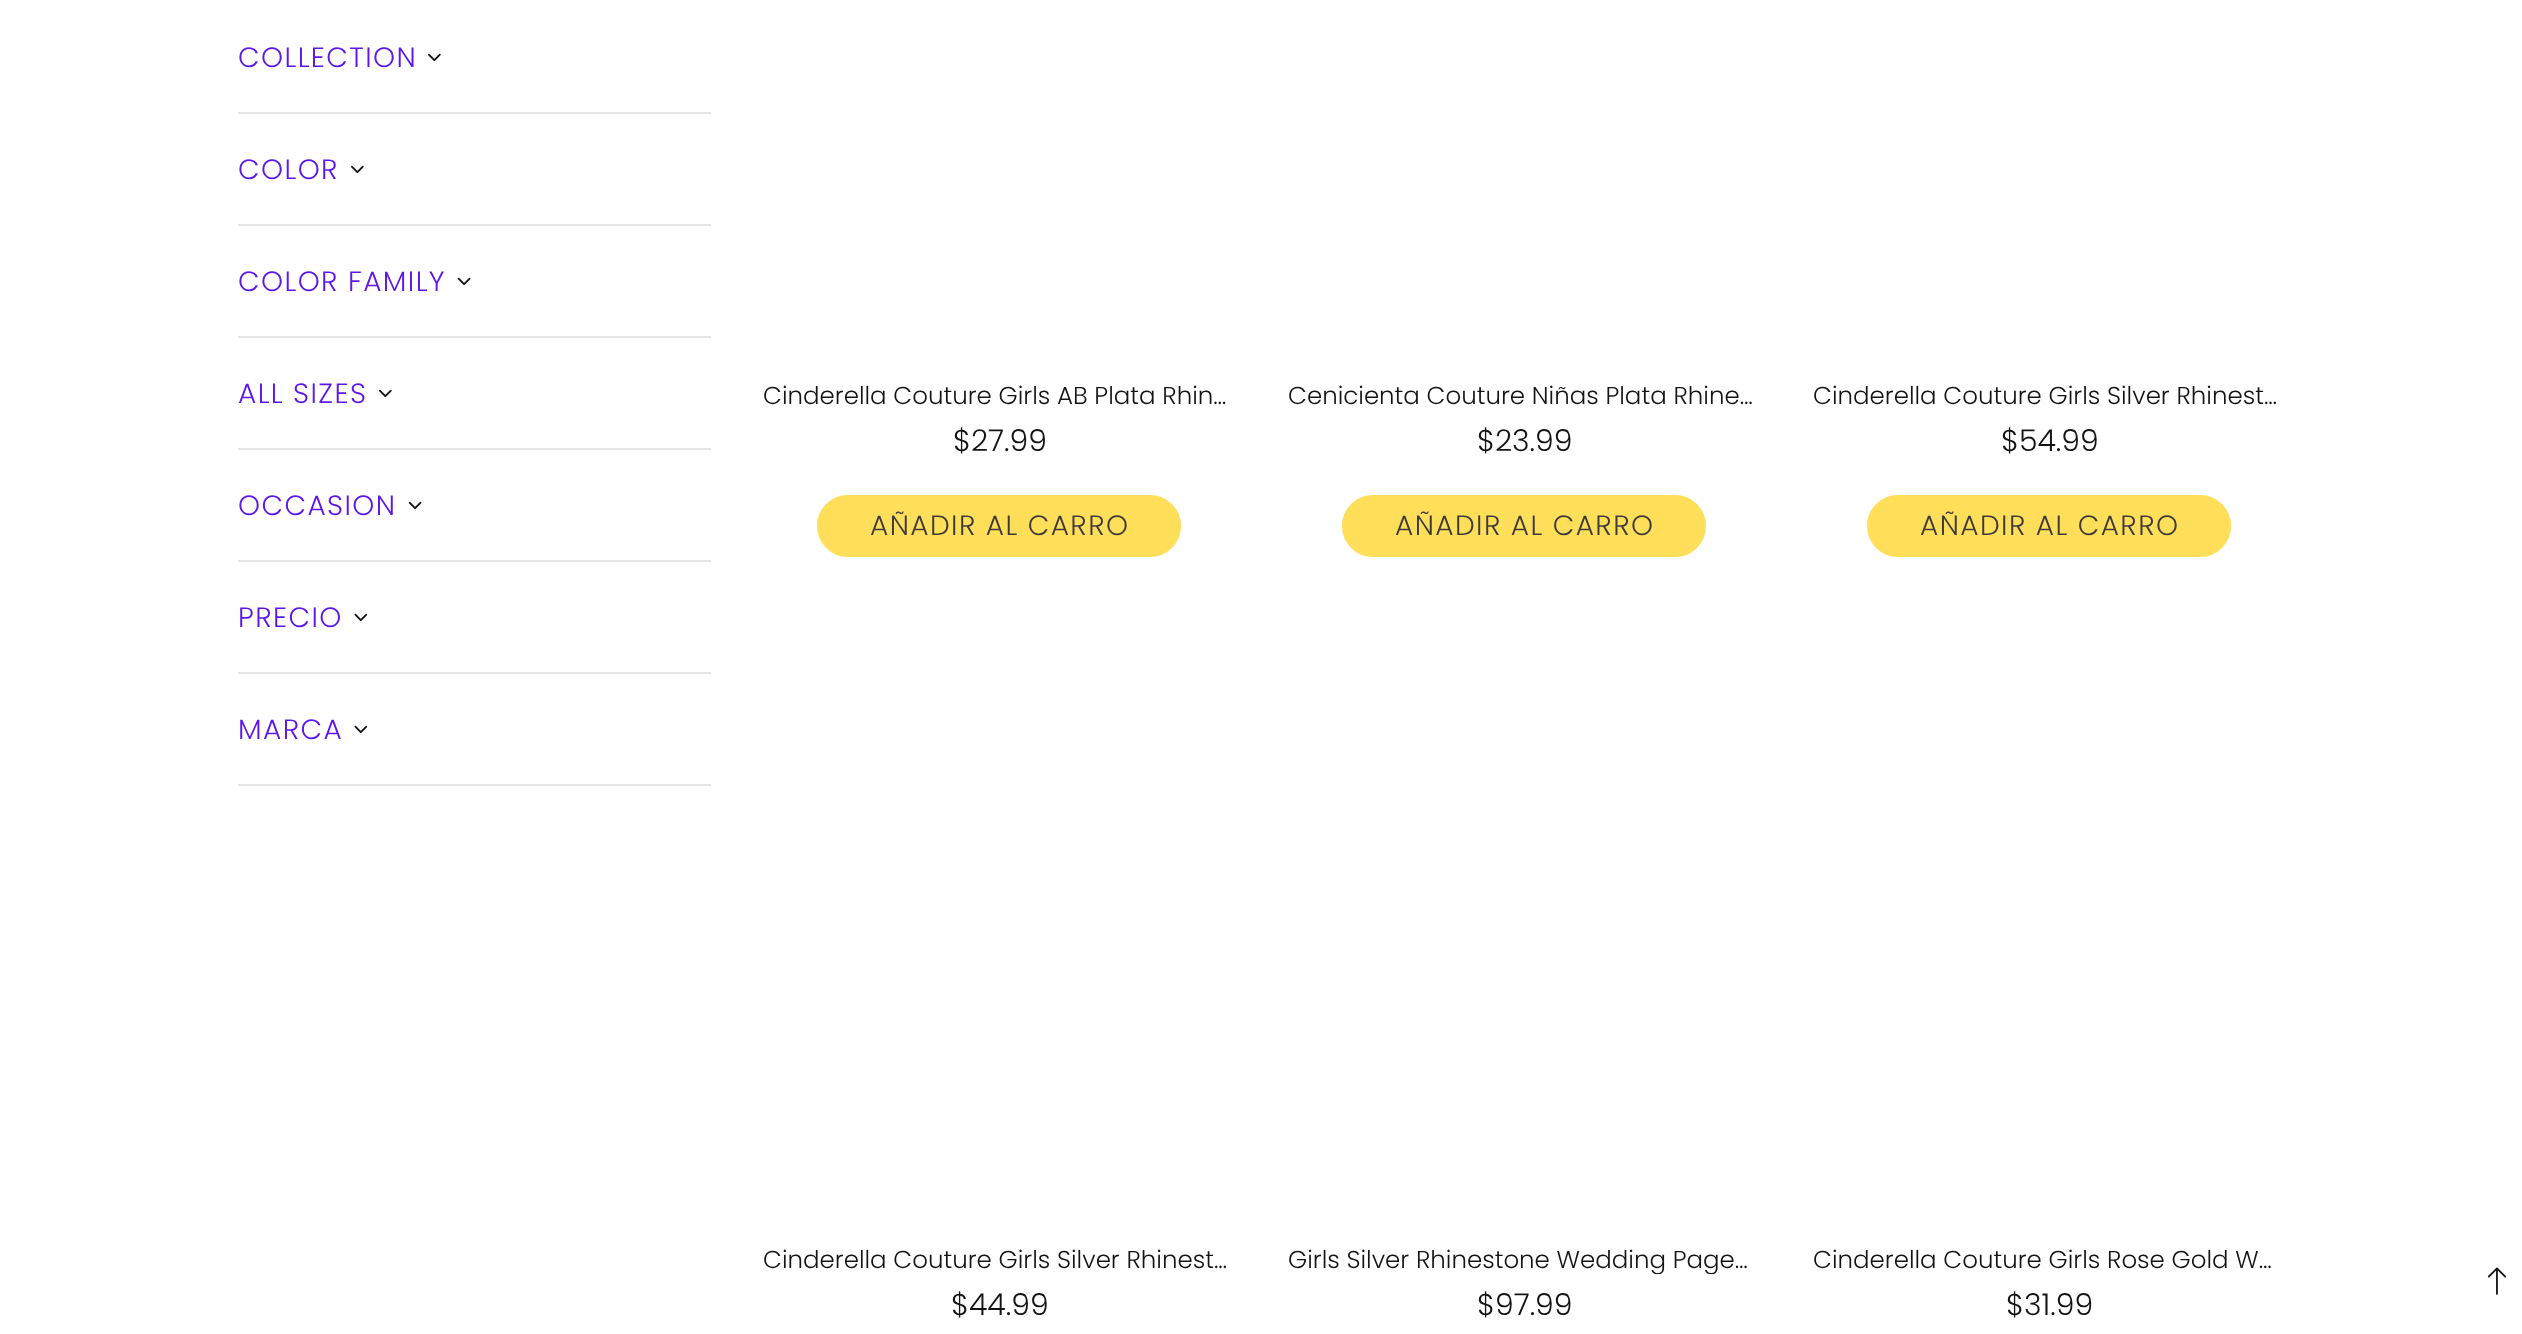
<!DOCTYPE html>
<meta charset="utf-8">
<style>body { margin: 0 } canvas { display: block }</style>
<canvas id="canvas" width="2522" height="1334"></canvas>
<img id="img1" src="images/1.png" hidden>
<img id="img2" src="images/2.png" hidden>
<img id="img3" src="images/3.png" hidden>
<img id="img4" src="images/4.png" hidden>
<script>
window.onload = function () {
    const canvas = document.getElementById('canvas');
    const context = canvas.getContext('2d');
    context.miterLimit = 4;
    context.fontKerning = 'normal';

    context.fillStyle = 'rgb(255, 255, 255)';
    context.fillRect(0, 0, 2522, 1334);
    context.fillStyle = 'rgb(229, 229, 229)';
    context.fillRect(238, 112, 473, 2);
    context.drawImage(document.getElementById('img1'), 428, 53, 13, 8);
    context.fillRect(238, 224, 473, 2);
    context.drawImage(document.getElementById('img1'), 351, 165, 13, 8);
    context.fillRect(238, 336, 473, 2);
    context.drawImage(document.getElementById('img2'), 457, 277, 14, 8);
    context.fillRect(238, 448, 473, 2);
    context.drawImage(document.getElementById('img1'), 379, 389, 13, 8);
    context.fillRect(238, 560, 473, 2);
    context.drawImage(document.getElementById('img2'), 408, 501, 14, 8);
    context.fillRect(238, 672, 473, 2);
    context.drawImage(document.getElementById('img3'), 354, 613, 14, 8);
    context.fillRect(238, 784, 473, 2);
    context.drawImage(document.getElementById('img3'), 354, 725, 14, 8);
    context.fillStyle = 'rgb(255, 222, 89)';
    context.beginPath();
    context.roundRect(818, 496, 362, 60, 30);
    context.fill();
    context.strokeStyle = 'rgb(255, 222, 89)';
    context.lineWidth = 2;
    context.stroke();
    context.beginPath();
    context.roundRect(1343, 496, 362, 60, 30);
    context.fill();
    context.stroke();
    context.beginPath();
    context.roundRect(1868, 496, 362, 60, 30);
    context.fill();
    context.stroke();
    context.drawImage(document.getElementById('img4'), 2487, 1267, 19, 28);
    context.letterSpacing = '1.4px';
    context.font = '300 28px Poppins';
    context.fillStyle = 'rgb(94, 23, 235)';
    context.fillText('COLLECTION', 238, 67);
    context.fillText('COLOR', 238, 179);
    context.fillText('COLOR FAMILY', 238, 291);
    context.fillText('ALL SIZES', 238, 403);
    context.fillText('OCCASION', 238, 515);
    context.fillText('PRECIO', 238, 627);
    context.fillText('MARCA', 238, 739);
    context.letterSpacing = '0px';
    context.font = '300 24.5px Poppins';
    context.fillStyle = 'rgb(20, 20, 20)';
    context.fillText('Cinderella Couture Girls AB Plata Rhin…', 763, 404);
    context.font = '300 30px Poppins';
    context.fillText('$27.99', 953, 451);
    context.letterSpacing = '1.4px';
    context.font = '300 28px Poppins';
    context.fillStyle = 'rgb(61, 59, 58)';
    context.fillText('AÑADIR AL CARRO', 870, 535);
    context.letterSpacing = '0px';
    context.font = '300 24.5px Poppins';
    context.fillStyle = 'rgb(20, 20, 20)';
    context.fillText('Cenicienta Couture Niñas Plata Rhine…', 1288, 404);
    context.font = '300 30px Poppins';
    context.fillText('$23.99', 1477, 451);
    context.letterSpacing = '1.4px';
    context.font = '300 28px Poppins';
    context.fillStyle = 'rgb(61, 59, 58)';
    context.fillText('AÑADIR AL CARRO', 1395, 535);
    context.letterSpacing = '0px';
    context.font = '300 24.5px Poppins';
    context.fillStyle = 'rgb(20, 20, 20)';
    context.fillText('Cinderella Couture Girls Silver Rhinest…', 1813, 404);
    context.font = '300 30px Poppins';
    context.fillText('$54.99', 2001, 451);
    context.letterSpacing = '1.4px';
    context.font = '300 28px Poppins';
    context.fillStyle = 'rgb(61, 59, 58)';
    context.fillText('AÑADIR AL CARRO', 1920, 535);
    context.letterSpacing = '0px';
    context.font = '300 24.5px Poppins';
    context.fillStyle = 'rgb(20, 20, 20)';
    context.fillText('Cinderella Couture Girls Silver Rhinest…', 763, 1268);
    context.font = '300 30px Poppins';
    context.fillText('$44.99', 951, 1315);
    context.save();
    context.beginPath();
    context.rect(1288, 1243, 473, 31);
    context.clip();
    context.font = '300 24.5px Poppins';
    context.fillText('Girls Silver Rhinestone Wedding Page…', 1288, 1268);
    context.restore();
    context.fillText('$97.99', 1477, 1315);
    context.font = '300 24.5px Poppins';
    context.fillText('Cinderella Couture Girls Rose Gold W…', 1813, 1268);
    context.font = '300 30px Poppins';
    context.fillText('$31.99', 2006, 1315);
};
</script>
